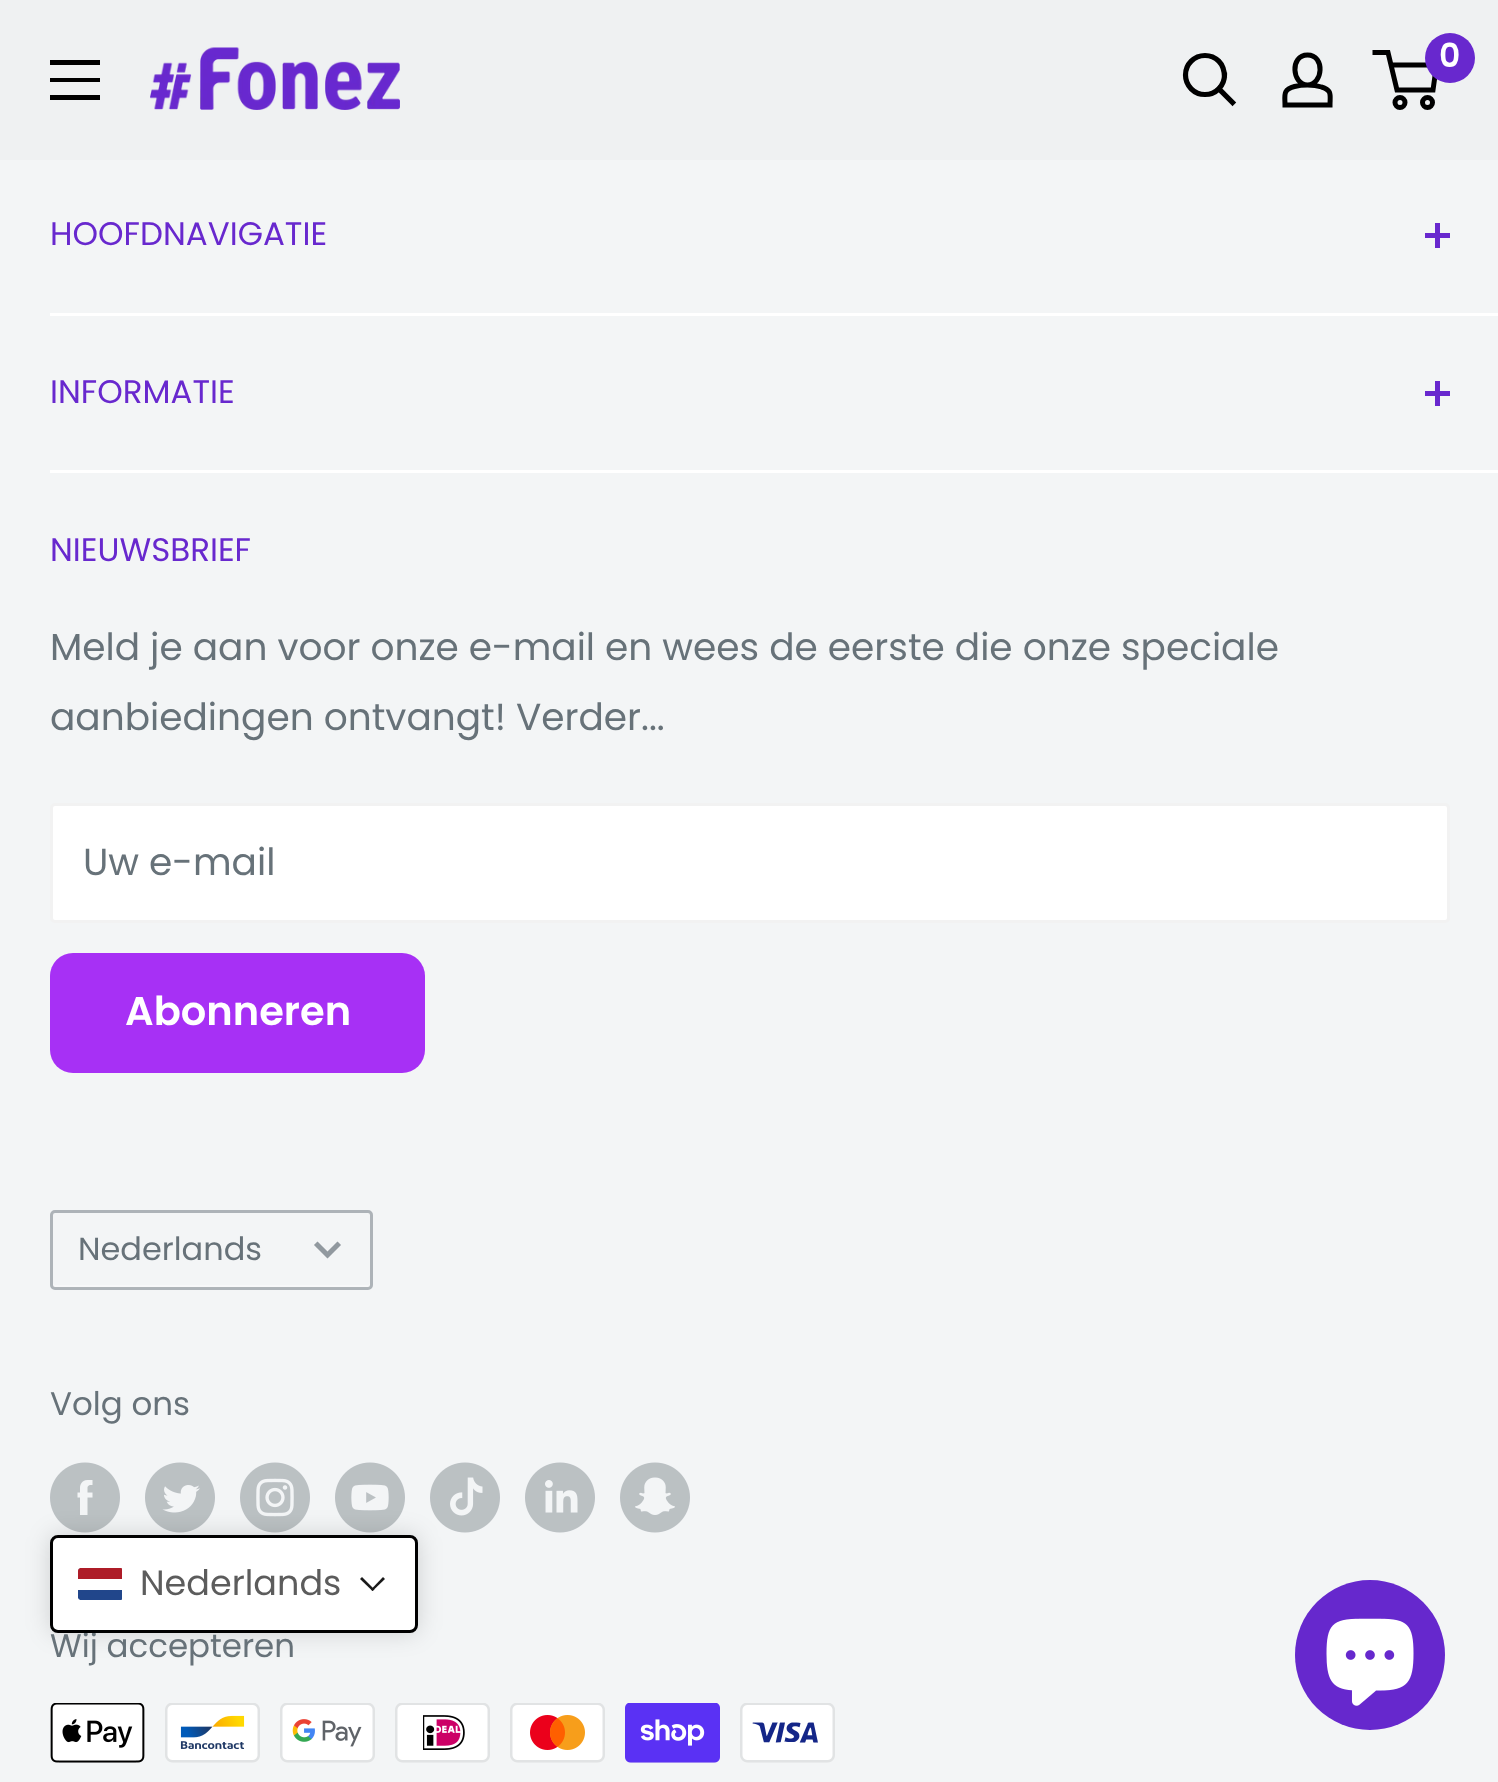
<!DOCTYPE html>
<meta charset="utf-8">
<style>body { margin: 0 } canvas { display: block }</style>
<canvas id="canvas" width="1498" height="1782"></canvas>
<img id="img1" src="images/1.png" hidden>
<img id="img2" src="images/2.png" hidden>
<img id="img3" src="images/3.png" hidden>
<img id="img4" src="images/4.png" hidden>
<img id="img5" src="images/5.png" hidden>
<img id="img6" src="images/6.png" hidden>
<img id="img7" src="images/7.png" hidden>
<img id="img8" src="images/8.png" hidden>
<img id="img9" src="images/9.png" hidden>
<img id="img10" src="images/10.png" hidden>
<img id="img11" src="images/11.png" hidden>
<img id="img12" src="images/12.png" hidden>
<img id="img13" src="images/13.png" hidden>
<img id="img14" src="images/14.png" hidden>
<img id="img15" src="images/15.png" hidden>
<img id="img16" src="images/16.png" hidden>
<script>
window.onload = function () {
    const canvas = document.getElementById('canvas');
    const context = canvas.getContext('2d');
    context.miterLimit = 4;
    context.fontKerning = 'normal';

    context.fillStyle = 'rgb(243, 245, 246)';
    context.fillRect(0, 0, 1498, 1782);
    context.fillStyle = 'rgb(239, 241, 242)';
    context.fillRect(0, 0, 1498, 160);
    context.fillStyle = 'rgb(0, 0, 0)';
    context.beginPath();
    context.moveTo(50, 95);
    context.lineTo(100, 95);
    context.lineTo(100, 100);
    context.lineTo(50, 100);
    context.closePath();
    context.moveTo(50, 60);
    context.lineTo(100, 60);
    context.lineTo(100, 65);
    context.lineTo(50, 65);
    context.closePath();
    context.moveTo(50, 78);
    context.lineTo(100, 78);
    context.lineTo(100, 82);
    context.lineTo(50, 82);
    context.closePath();
    context.fill('evenodd');
    context.drawImage(document.getElementById('img1'), 150, 47, 250, 63);
    context.beginPath();
    context.moveTo(1232.5, 102.5);
    context.lineTo(1219, 89);
    context.strokeStyle = 'rgb(0, 0, 0)';
    context.lineWidth = 5.2;
    context.lineCap = 'square';
    context.stroke();
    context.beginPath();
    context.arc(1205, 75, 19.5, 0, 2 * Math.PI);
    context.stroke();
    context.beginPath();
    context.moveTo(1307.5, 85);
    context.bezierCurveTo(1312, 85, 1317, 85.5, 1321.5, 87);
    context.bezierCurveTo(1332.5, 90, 1330, 95.5, 1330, 105);
    context.lineTo(1285, 105);
    context.bezierCurveTo(1285, 95, 1282.5, 89.5, 1294.5, 86.5);
    context.bezierCurveTo(1298.5, 85.5, 1303, 85, 1307.5, 85);
    context.closePath();
    context.moveTo(1307.5, 85);
    context.bezierCurveTo(1292, 85, 1289.5, 55, 1307.5, 55);
    context.bezierCurveTo(1325.5, 55, 1323, 85, 1307.5, 85);
    context.closePath();
    context.lineWidth = 5;
    context.lineCap = 'butt';
    context.stroke();
    context.beginPath();
    context.arc(1400, 102.5, 5, 0, 2 * Math.PI);
    context.stroke();
    context.beginPath();
    context.arc(1427.5, 102.5, 5, 0, 2 * Math.PI);
    context.stroke();
    context.beginPath();
    context.moveTo(1391, 65);
    context.lineTo(1436.5, 65);
    context.lineTo(1433, 90);
    context.lineTo(1397, 90);
    context.lineTo(1388, 52.5);
    context.lineTo(1372.5, 52.5);
    context.stroke();
    context.fillStyle = 'rgb(104, 40, 206)';
    context.beginPath();
    context.arc(1450, 58, 25, 0, 2 * Math.PI);
    context.fill();
    context.fillStyle = 'rgb(255, 255, 255)';
    context.fillRect(50, 313, 1448, 3);
    context.fillStyle = 'rgb(104, 40, 206)';
    context.fillRect(1435, 223, 5, 25);
    context.fillRect(1425, 233, 25, 5);
    context.fillStyle = 'rgb(255, 255, 255)';
    context.fillRect(50, 470, 1448, 3);
    context.fillStyle = 'rgb(104, 40, 206)';
    context.fillRect(1435, 381, 5, 25);
    context.fillRect(1425, 391, 25, 5);
    context.fillStyle = 'rgb(255, 255, 255)';
    context.beginPath();
    context.roundRect(51.5, 804.5, 1397, 117, 3.5);
    context.fill();
    context.strokeStyle = 'rgb(242, 242, 242)';
    context.lineWidth = 3;
    context.stroke();
    context.fillStyle = 'rgb(167, 48, 245)';
    context.beginPath();
    context.roundRect(50, 953, 375, 120, 23);
    context.fill();
    context.fillStyle = 'rgb(247, 248, 249)';
    context.beginPath();
    context.moveTo(53, 1284);
    context.lineTo(53, 1286);
    context.bezierCurveTo(53, 1287, 54, 1288, 56, 1288);
    context.lineTo(368, 1288);
    context.bezierCurveTo(369, 1288, 370, 1287, 370, 1286);
    context.lineTo(370, 1282);
    context.bezierCurveTo(370, 1284, 369, 1285, 368, 1285);
    context.lineTo(55, 1285);
    context.closePath();
    context.fill();
    context.beginPath();
    context.roundRect(51.5, 1211.5, 320, 77, 3.5);
    context.strokeStyle = 'rgba(103, 114, 121, 0.5)';
    context.stroke();
    context.beginPath();
    context.moveTo(337.5, 1245);
    context.lineTo(327.5, 1255);
    context.lineTo(317.5, 1245);
    context.strokeStyle = 'rgb(145, 153, 159)';
    context.lineWidth = 5;
    context.lineCap = 'square';
    context.stroke();
    context.drawImage(document.getElementById('img2'), 50, 1462, 70, 71);
    context.drawImage(document.getElementById('img3'), 145, 1462, 70, 71);
    context.drawImage(document.getElementById('img4'), 240, 1462, 70, 71);
    context.drawImage(document.getElementById('img5'), 335, 1462, 70, 71);
    context.drawImage(document.getElementById('img6'), 430, 1462, 70, 71);
    context.drawImage(document.getElementById('img7'), 525, 1462, 70, 71);
    context.drawImage(document.getElementById('img8'), 620, 1462, 70, 71);
    context.drawImage(document.getElementById('img9'), 50, 1703, 95, 60);
    context.drawImage(document.getElementById('img10'), 165, 1703, 95, 60);
    context.drawImage(document.getElementById('img11'), 280, 1703, 95, 60);
    context.drawImage(document.getElementById('img12'), 395, 1703, 95, 60);
    context.drawImage(document.getElementById('img13'), 510, 1703, 95, 60);
    context.drawImage(document.getElementById('img14'), 625, 1703, 95, 60);
    context.drawImage(document.getElementById('img15'), 740, 1703, 95, 60);
    context.fillStyle = 'rgba(0, 0, 0, 0.15)';
    context.filter = 'blur(12.5px)';
    context.beginPath();
    context.roundRect(50, 1535, 368, 98, 8);
    context.fill();
    context.filter = 'none';
    context.fillStyle = 'rgb(102, 40, 205)';
    context.beginPath();
    context.arc(1370, 1655, 75, 0, 2 * Math.PI);
    context.fill();
    context.drawImage(document.getElementById('img16'), 1326, 1618, 88, 88);
    context.font = '600 33px Poppins';
    context.fillStyle = 'rgb(255, 255, 255)';
    context.fillText('0', 1439, 67);
    context.font = '32.5px Poppins';
    context.fillStyle = 'rgb(104, 40, 206)';
    context.fillText('HOOFDNAVIGATIE', 50, 245);
    context.fillText('INFORMATIE', 50, 403);
    context.fillText('NIEUWSBRIEF', 50, 561);
    context.font = '37.5px Poppins';
    context.fillStyle = 'rgb(103, 114, 121)';
    context.fillText('Meld je aan voor onze e-mail en wees de eerste die onze speciale', 50, 660);
    context.fillText('aanbiedingen ontvangt! Verder...', 50, 730);
    context.fillText('Uw e-mail', 83, 875);
    context.font = '600 40px Poppins';
    context.fillStyle = 'rgb(255, 255, 255)';
    context.fillText('Abonneren', 125, 1025);
    context.font = '32px Poppins';
    context.fillStyle = 'rgb(103, 114, 121)';
    context.fillText('Nederlands', 78, 1260);
    context.font = '32.5px Poppins';
    context.fillText('Volg ons', 50, 1415);
    context.fillText('Wij accepteren', 50, 1657);
    context.fillStyle = 'rgb(255, 255, 255)';
    context.beginPath();
    context.roundRect(51.5, 1536.5, 365, 95, 6.5);
    context.fill();
    context.strokeStyle = 'rgb(0, 0, 0)';
    context.lineWidth = 3;
    context.stroke();
    context.save();
    context.beginPath();
    context.roundRect(78, 1568, 45, 32, 2.5);
    context.clip();
    context.fillStyle = 'rgb(33, 70, 139)';
    context.beginPath();
    context.roundRect(78, 1568, 44, 32, [2.5, 0, 0, 2.5]);
    context.fill();
    context.fillStyle = 'rgb(255, 255, 255)';
    context.beginPath();
    context.roundRect(78, 1568, 44, 22, [2.5, 0, 0, 0]);
    context.fill();
    context.fillStyle = 'rgb(174, 28, 40)';
    context.beginPath();
    context.roundRect(78, 1568, 44, 11, [2.5, 0, 0, 0]);
    context.fill();
    context.restore();
    context.font = '35px Poppins';
    context.fillStyle = 'rgb(92, 92, 92)';
    context.fillText('Nederlands', 140, 1595);
    context.fillStyle = 'rgb(26, 26, 26)';
    context.beginPath();
    context.moveTo(383, 1577);
    context.lineTo(385, 1579);
    context.lineTo(372.5, 1591);
    context.lineTo(371, 1589.5);
    context.closePath();
    context.fill();
    context.beginPath();
    context.moveTo(362, 1577);
    context.lineTo(374.5, 1589.5);
    context.lineTo(372.5, 1591);
    context.lineTo(360, 1579);
    context.closePath();
    context.fill();
};
</script>
